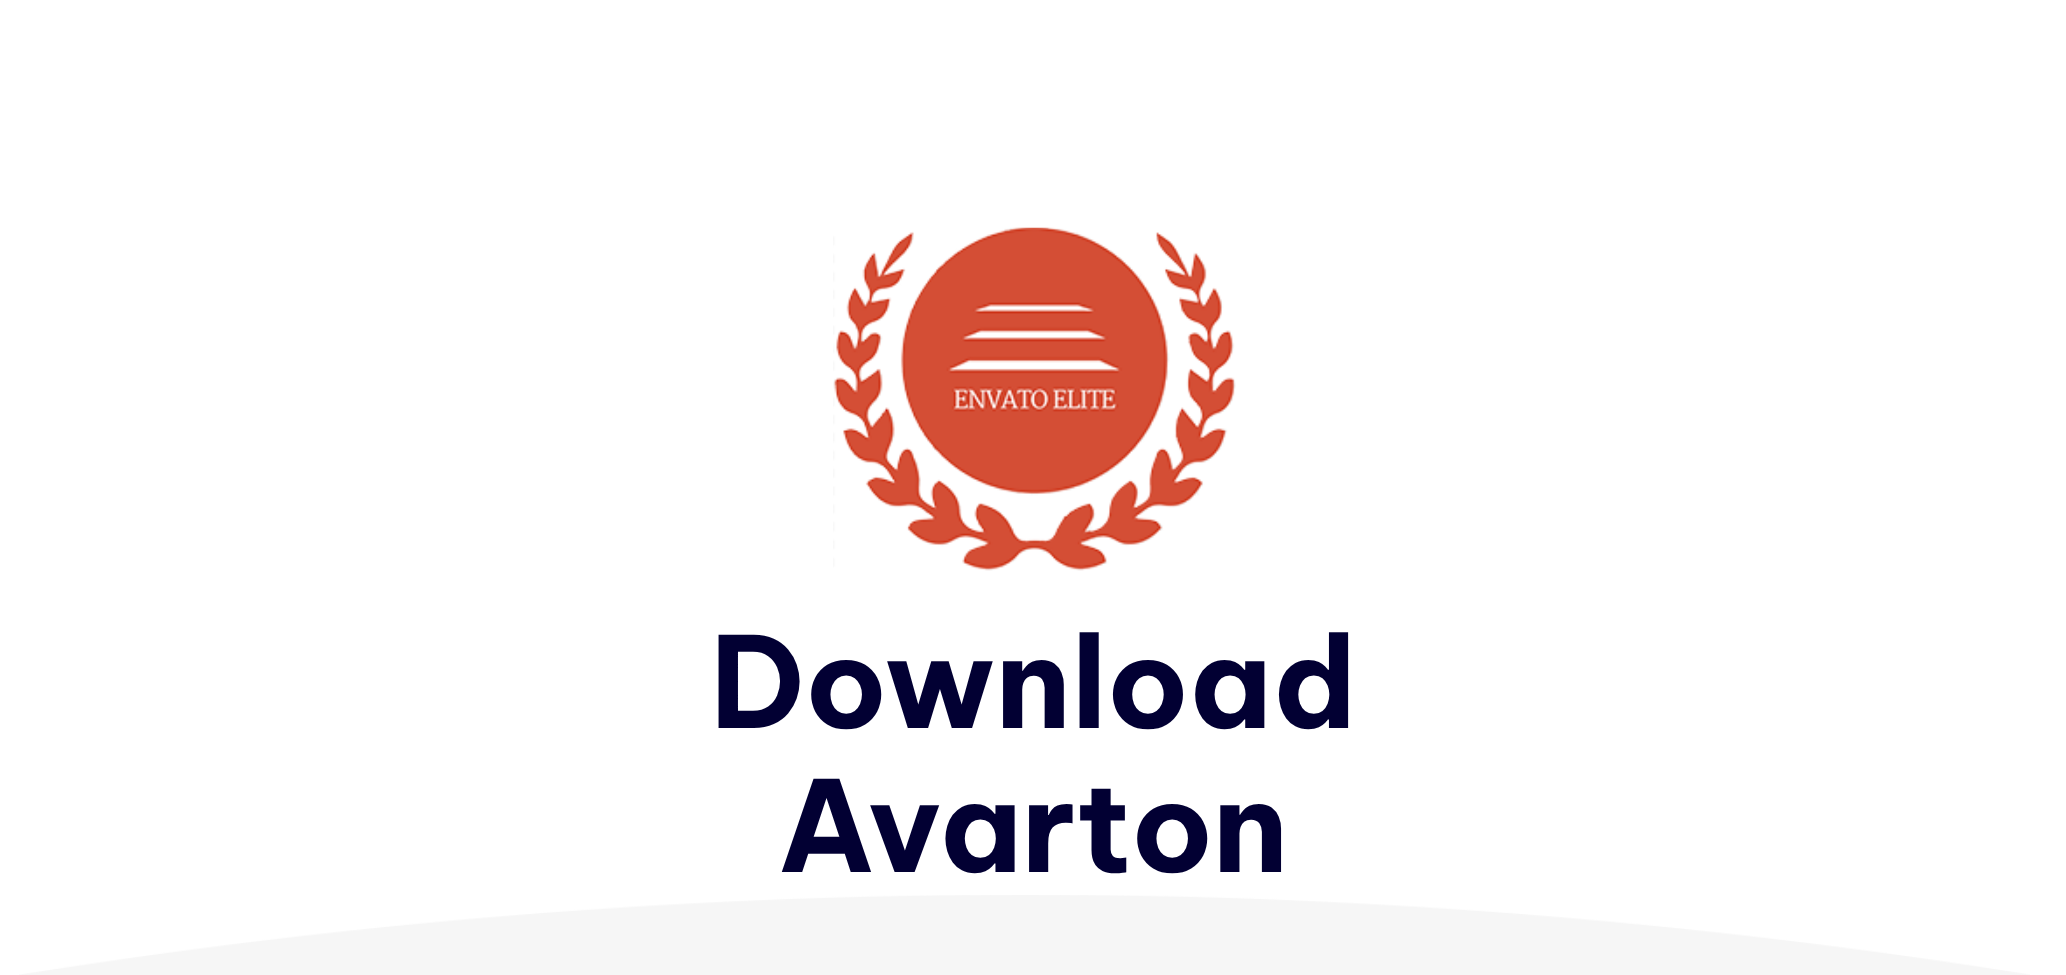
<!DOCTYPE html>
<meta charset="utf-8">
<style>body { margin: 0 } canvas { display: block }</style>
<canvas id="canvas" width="2066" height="975"></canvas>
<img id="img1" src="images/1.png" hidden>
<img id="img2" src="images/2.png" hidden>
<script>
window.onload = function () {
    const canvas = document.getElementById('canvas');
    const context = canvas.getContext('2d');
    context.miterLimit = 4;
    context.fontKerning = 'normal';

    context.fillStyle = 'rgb(255, 255, 255)';
    context.fillRect(0, 0, 2066, 975);
    context.drawImage(document.getElementById('img1'), 833, 227, 403, 344);
    context.drawImage(document.getElementById('img2'), 19, 895, 2011, 80);
    context.font = 'bold 126px Be Vietnam Pro';
    context.fillStyle = 'rgb(2, 0, 51)';
    context.fillText('Download', 710, 728);
    context.fillText('Avarton', 778, 872);
};
</script>
